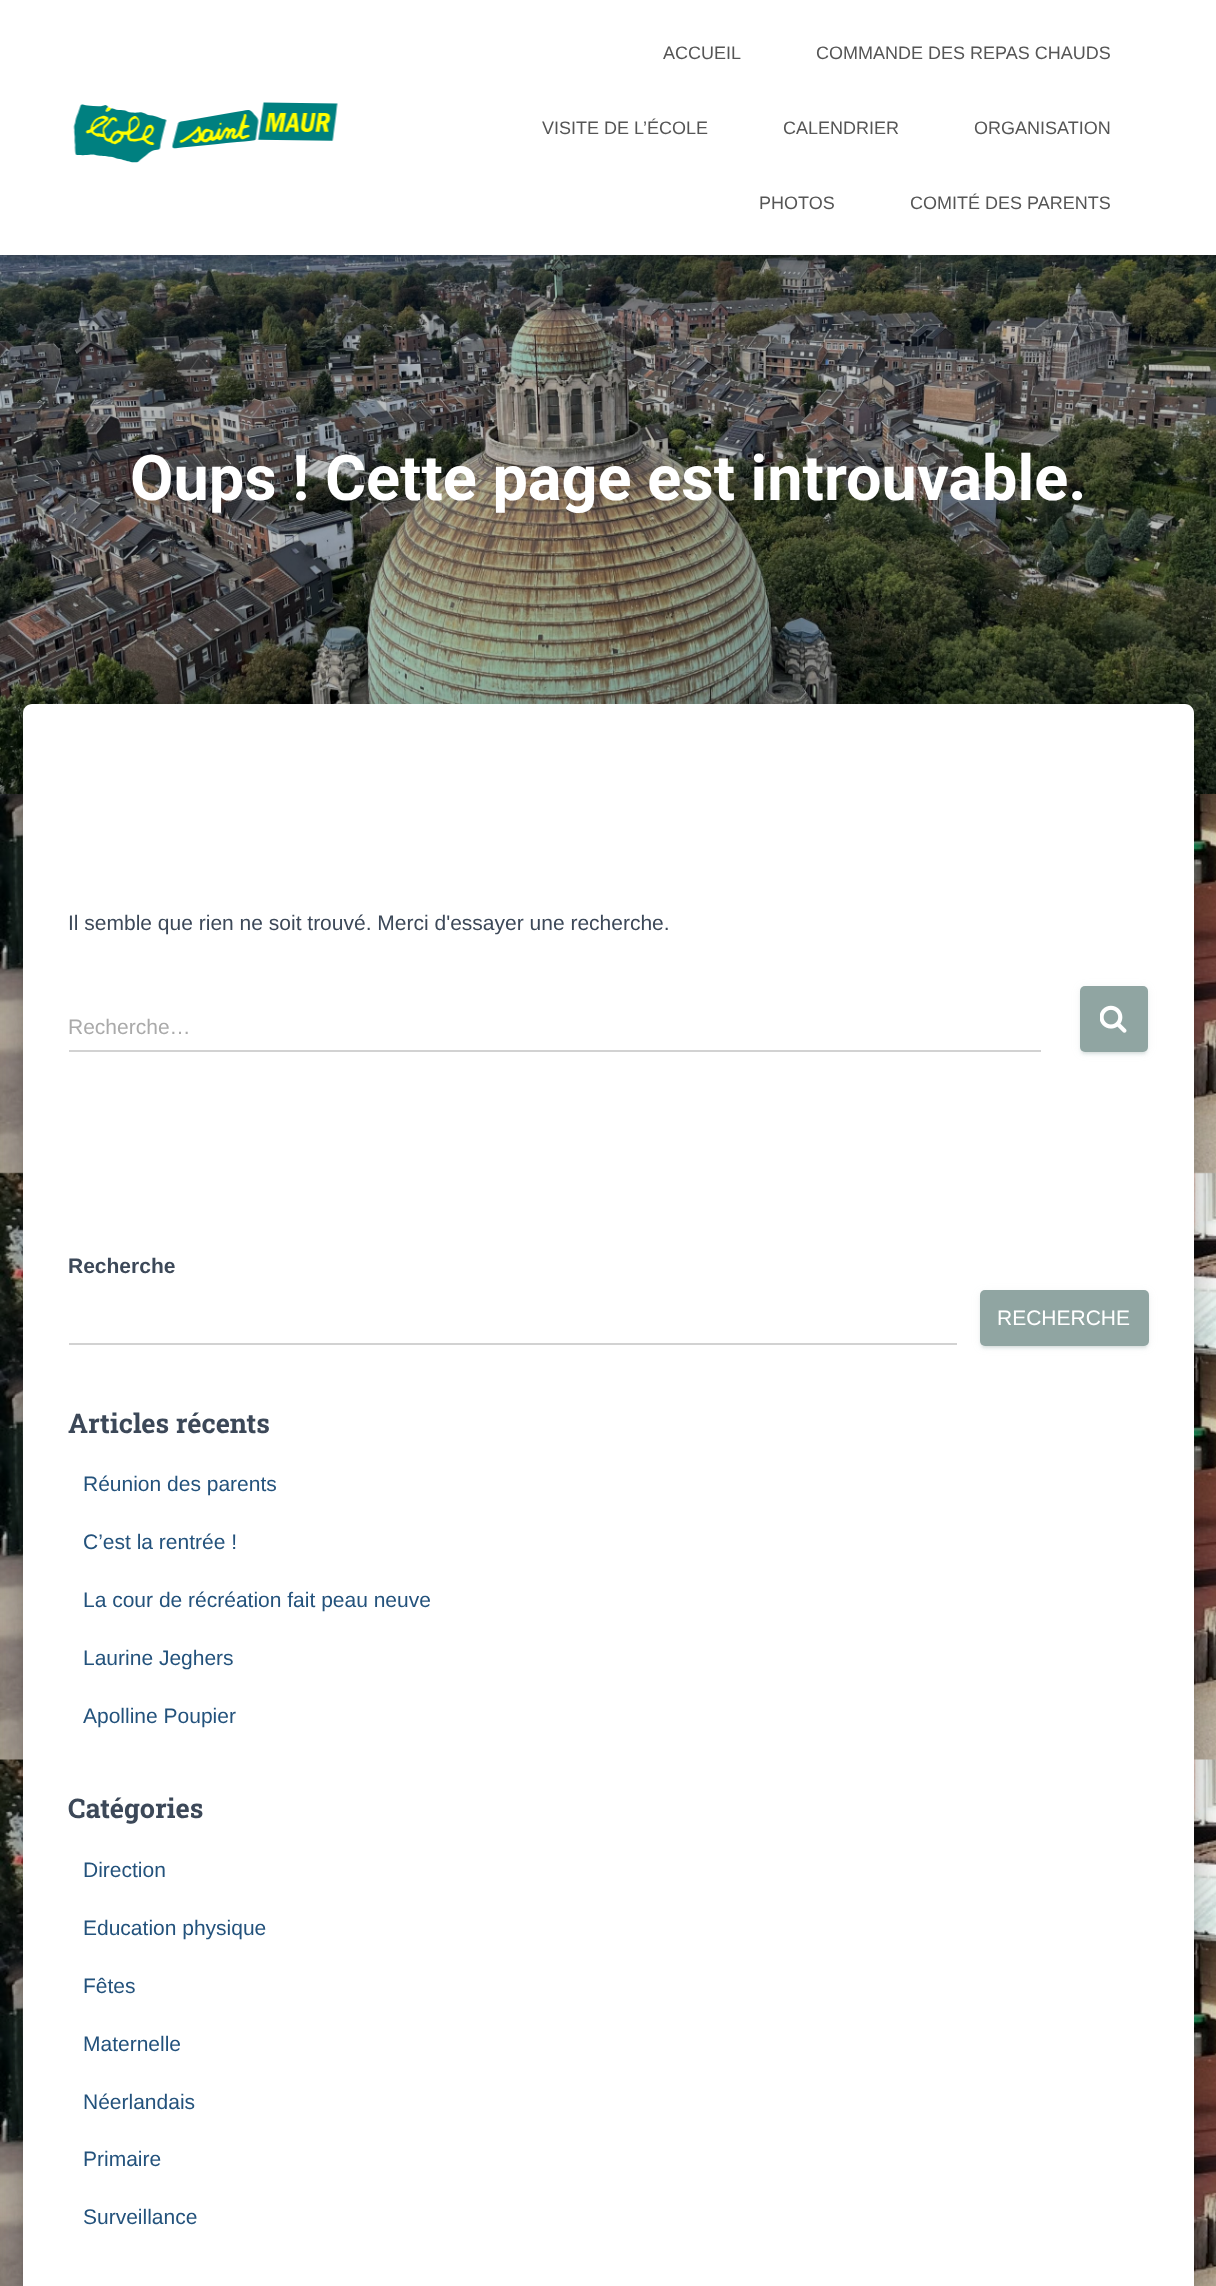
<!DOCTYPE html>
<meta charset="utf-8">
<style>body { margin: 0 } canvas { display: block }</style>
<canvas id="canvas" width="1216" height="2286"></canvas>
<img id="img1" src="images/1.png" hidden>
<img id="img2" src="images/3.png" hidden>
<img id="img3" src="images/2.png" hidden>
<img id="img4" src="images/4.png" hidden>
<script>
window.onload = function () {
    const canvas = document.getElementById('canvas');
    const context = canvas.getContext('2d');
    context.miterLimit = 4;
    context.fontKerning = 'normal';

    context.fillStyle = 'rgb(255, 255, 255)';
    context.fillRect(0, 0, 1216, 2286);
    context.drawImage(document.getElementById('img1'), 0, 792, 1216, 1494);
    context.drawImage(document.getElementById('img2'), 0, 255, 1216, 539);
    context.fillStyle = 'rgba(0, 0, 0, 0.25)';
    context.fillRect(0, 255, 1216, 539);
    context.fillStyle = 'rgba(0, 0, 0, 0.1)';
    context.filter = 'blur(4px)';
    context.beginPath();
    context.rect(3, 9, 1211, 249);
    context.fill();
    context.filter = 'none';
    context.fillStyle = 'rgba(0, 0, 0, 0.12)';
    context.filter = 'blur(7.5px)';
    context.beginPath();
    context.rect(0, 2, 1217, 255);
    context.fill();
    context.filter = 'none';
    context.fillStyle = 'rgba(0, 0, 0, 0.42)';
    context.filter = 'blur(7.5px)';
    context.beginPath();
    context.rect(9, 11, 1199, 237);
    context.fill();
    context.filter = 'none';
    context.fillStyle = 'rgb(255, 255, 255)';
    context.fillRect(0, 0, 1216, 255);
    context.drawImage(document.getElementById('img3'), 73, 102, 265, 61);
    context.fillStyle = 'rgba(0, 0, 0, 0.2)';
    context.filter = 'blur(7.5px)';
    context.beginPath();
    context.roundRect(30, 723, 1157, 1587, 1.5);
    context.fill();
    context.filter = 'none';
    context.fillStyle = 'rgba(0, 0, 0, 0.12)';
    context.filter = 'blur(22.5px)';
    context.beginPath();
    context.roundRect(15, 705, 1187, 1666, 17);
    context.fill();
    context.filter = 'none';
    context.fillStyle = 'rgba(0, 0, 0, 0.14)';
    context.filter = 'blur(18px)';
    context.beginPath();
    context.roundRect(20, 725, 1177, 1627, 12);
    context.fill();
    context.filter = 'none';
    context.fillStyle = 'rgb(255, 255, 255)';
    context.beginPath();
    context.moveTo(32, 704);
    context.lineTo(1185, 704);
    context.bezierCurveTo(1190, 704, 1194, 708, 1194, 713);
    context.lineTo(1194, 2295);
    context.lineTo(23, 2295);
    context.lineTo(23, 713);
    context.bezierCurveTo(23, 708, 27, 704, 32, 704);
    context.closePath();
    context.fill();
    context.fillStyle = 'rgb(210, 210, 210)';
    context.fillRect(69, 1050, 972, 2);
    context.fillStyle = 'rgba(144, 165, 162, 0.12)';
    context.filter = 'blur(4px)';
    context.beginPath();
    context.roundRect(1080, 987, 68, 66, 5);
    context.fill();
    context.filter = 'none';
    context.fillStyle = 'rgba(144, 165, 162, 0.2)';
    context.filter = 'blur(1px)';
    context.beginPath();
    context.roundRect(1083, 993, 62, 60, 1.5);
    context.fill();
    context.filter = 'none';
    context.fillStyle = 'rgba(144, 165, 162, 0.14)';
    context.filter = 'blur(1.5px)';
    context.beginPath();
    context.roundRect(1080, 989, 68, 66, 5);
    context.fill();
    context.filter = 'none';
    context.fillStyle = 'rgb(144, 165, 162)';
    context.beginPath();
    context.roundRect(1080, 986, 68, 66, 5);
    context.fill();
    context.drawImage(document.getElementById('img4'), 1100, 1005, 27, 28);
    context.fillStyle = 'rgba(144, 165, 162, 0.12)';
    context.filter = 'blur(4px)';
    context.beginPath();
    context.roundRect(980, 1292, 169, 55, 5);
    context.fill();
    context.filter = 'none';
    context.fillStyle = 'rgba(144, 165, 162, 0.2)';
    context.filter = 'blur(1px)';
    context.beginPath();
    context.roundRect(983, 1298, 163, 49, 1.5);
    context.fill();
    context.filter = 'none';
    context.fillStyle = 'rgba(144, 165, 162, 0.14)';
    context.filter = 'blur(1.5px)';
    context.beginPath();
    context.roundRect(980, 1293, 169, 56, 5);
    context.fill();
    context.filter = 'none';
    context.fillStyle = 'rgb(144, 165, 162)';
    context.beginPath();
    context.roundRect(980, 1290, 169, 56, 5);
    context.fill();
    context.fillStyle = 'rgb(210, 210, 210)';
    context.fillRect(69, 1343, 888, 2);
    context.font = '18px Liberation Sans';
    context.fillStyle = 'rgb(85, 85, 85)';
    context.fillText('ACCUEIL', 663, 59);
    context.fillText('COMMANDE DES REPAS CHAUDS', 816, 59);
    context.fillText('VISITE DE L’ÉCOLE', 542, 134);
    context.fillText('CALENDRIER', 783, 134);
    context.fillText('ORGANISATION', 974, 134);
    context.fillText('PHOTOS', 759, 209);
    context.fillText('COMITÉ DES PARENTS', 910, 209);
    context.font = 'bold 63px Roboto';
    context.fillStyle = 'rgb(255, 255, 255)';
    context.fillText('Oups ! Cette page est introuvable.', 130, 500);
    context.font = '21px Liberation Sans';
    context.fillStyle = 'rgb(60, 72, 88)';
    context.fillText('Il semble que rien ne soit trouvé. Merci d\'essayer une recherche.', 68, 930);
    context.fillStyle = 'rgb(170, 170, 170)';
    context.fillText('Recherche…', 68, 1034);
    context.font = 'bold 21px Liberation Sans';
    context.fillStyle = 'rgb(60, 72, 88)';
    context.fillText('Recherche', 68, 1273);
    context.font = '21px Liberation Sans';
    context.fillStyle = 'rgb(255, 255, 255)';
    context.fillText('RECHERCHE', 997, 1325);
    context.font = 'bold 27px Roboto Slab';
    context.fillStyle = 'rgb(60, 72, 88)';
    context.fillText('Articles récents', 68, 1433);
    context.font = '21px Liberation Sans';
    context.fillStyle = 'rgb(35, 82, 124)';
    context.fillText('Réunion des parents', 83, 1491);
    context.fillText('C’est la rentrée !', 83, 1549);
    context.fillText('La cour de récréation fait peau neuve', 83, 1607);
    context.fillText('Laurine Jeghers', 83, 1665);
    context.fillText('Apolline Poupier', 83, 1723);
    context.font = 'bold 27px Roboto Slab';
    context.fillStyle = 'rgb(60, 72, 88)';
    context.fillText('Catégories', 68, 1818);
    context.font = '21px Liberation Sans';
    context.fillStyle = 'rgb(35, 82, 124)';
    context.fillText('Direction', 83, 1877);
    context.fillText('Education physique', 83, 1935);
    context.fillText('Fêtes', 83, 1993);
    context.fillText('Maternelle', 83, 2051);
    context.fillText('Néerlandais', 83, 2109);
    context.fillText('Primaire', 83, 2166);
    context.fillText('Surveillance', 83, 2224);
};
</script>
